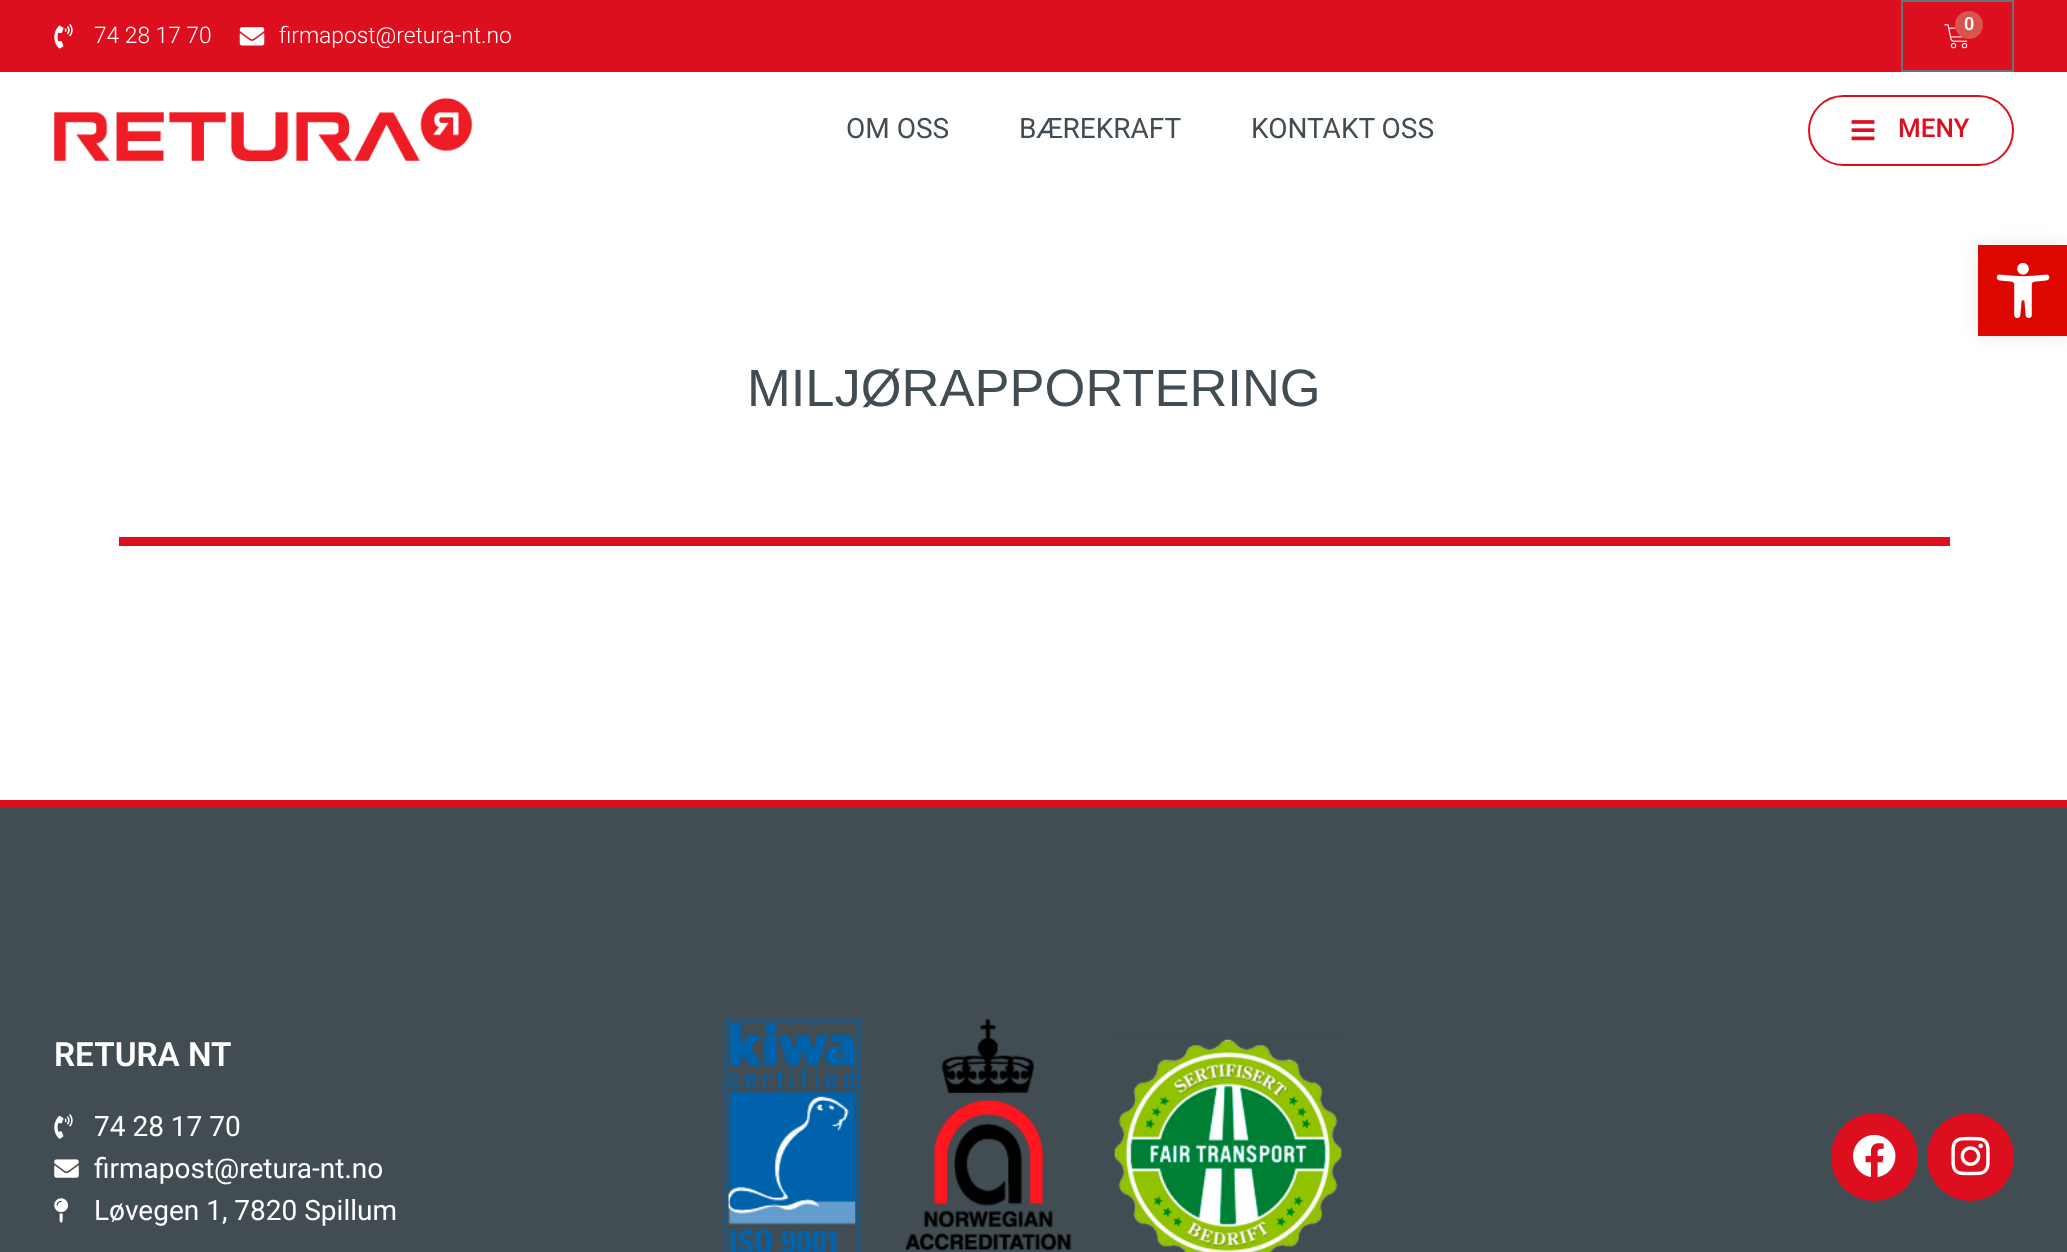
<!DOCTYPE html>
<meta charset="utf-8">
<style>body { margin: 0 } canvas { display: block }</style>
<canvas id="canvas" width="2067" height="1252"></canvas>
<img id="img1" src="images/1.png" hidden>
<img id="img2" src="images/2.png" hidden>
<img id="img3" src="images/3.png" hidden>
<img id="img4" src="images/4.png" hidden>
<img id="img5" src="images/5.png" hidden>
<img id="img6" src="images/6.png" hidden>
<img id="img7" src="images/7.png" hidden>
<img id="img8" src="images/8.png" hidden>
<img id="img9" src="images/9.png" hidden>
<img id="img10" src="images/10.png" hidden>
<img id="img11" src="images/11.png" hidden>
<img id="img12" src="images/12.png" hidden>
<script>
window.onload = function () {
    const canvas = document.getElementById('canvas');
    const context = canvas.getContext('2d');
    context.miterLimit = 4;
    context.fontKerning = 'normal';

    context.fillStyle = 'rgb(255, 255, 255)';
    context.fillRect(0, 0, 2067, 1252);
    context.fillStyle = 'rgb(221, 15, 30)';
    context.fillRect(0, 0, 2067, 72);
    context.drawImage(document.getElementById('img1'), 54, 24, 19, 25);
    context.drawImage(document.getElementById('img2'), 239, 27, 26, 19);
    context.strokeStyle = 'rgb(105, 114, 125)';
    context.lineWidth = 2;
    context.strokeRect(1902, 1, 111, 70);
    context.drawImage(document.getElementById('img3'), 1944, 24, 24, 25);
    context.fillStyle = 'rgb(217, 83, 79)';
    context.beginPath();
    context.arc(1969, 25, 14, 0, 2 * Math.PI);
    context.fill();
    context.drawImage(document.getElementById('img4'), 54, 98, 419, 63);
    context.beginPath();
    context.roundRect(1809, 96, 204, 69, 34.5);
    context.strokeStyle = 'rgb(221, 15, 30)';
    context.stroke();
    context.drawImage(document.getElementById('img5'), 1851, 120, 24, 21);
    context.fillStyle = 'rgba(0, 0, 0, 0.1)';
    context.filter = 'blur(9px)';
    context.beginPath();
    context.rect(1978, 245, 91, 91);
    context.fill();
    context.filter = 'none';
    context.fillStyle = 'rgb(221, 7, 0)';
    context.fillRect(1978, 245, 89, 91);
    context.drawImage(document.getElementById('img6'), 1996, 263, 54, 56);
    context.fillStyle = 'rgb(221, 15, 30)';
    context.fillRect(119, 537, 1831, 9);
    context.fillStyle = 'rgb(66, 76, 83)';
    context.fillRect(0, 807, 2067, 445);
    context.fillStyle = 'rgb(221, 15, 30)';
    context.fillRect(0, 800, 2067, 7);
    context.drawImage(document.getElementById('img7'), 54, 1114, 19, 25);
    context.drawImage(document.getElementById('img8'), 54, 1159, 25, 19);
    context.drawImage(document.getElementById('img9'), 54, 1198, 14, 25);
    context.drawImage(document.getElementById('img10'), 724, 1018, 618, 234);
    context.beginPath();
    context.roundRect(1831, 1113, 87, 88, 43.5);
    context.fill();
    context.drawImage(document.getElementById('img11'), 1853, 1134, 43, 43);
    context.beginPath();
    context.roundRect(1927, 1113, 87, 88, 43.5);
    context.fill();
    context.drawImage(document.getElementById('img12'), 1951, 1136, 39, 40);
    context.font = '300 22.75px Roboto';
    context.fillStyle = 'rgb(255, 255, 255)';
    context.fillText('74 28 17 70', 94, 43);
    context.fillText('firmapost@retura-nt.no', 279, 43);
    context.font = '600 18px Roboto';
    context.fillText('0', 1964, 30);
    context.font = '28px Roboto';
    context.fillStyle = 'rgb(66, 76, 83)';
    context.fillText('OM OSS', 846, 138);
    context.fillText('BÆREKRAFT', 1019, 138);
    context.fillText('KONTAKT OSS', 1251, 138);
    context.font = '500 26px Roboto';
    context.fillStyle = 'rgb(221, 15, 30)';
    context.fillText('MENY', 1898, 137);
    context.font = '52.5px Liberation Sans';
    context.fillStyle = 'rgb(66, 76, 83)';
    context.fillText('MILJØRAPPORTERING', 747, 406);
    context.font = '600 33.25px Roboto';
    context.fillStyle = 'rgb(255, 255, 255)';
    context.fillText('RETURA NT', 54, 1066);
    context.font = '28px Roboto';
    context.fillText('74 28 17 70', 94, 1136);
    context.fillText('firmapost@retura-nt.no', 94, 1178);
    context.fillText('Løvegen 1, 7820 Spillum', 94, 1220);
};
</script>
